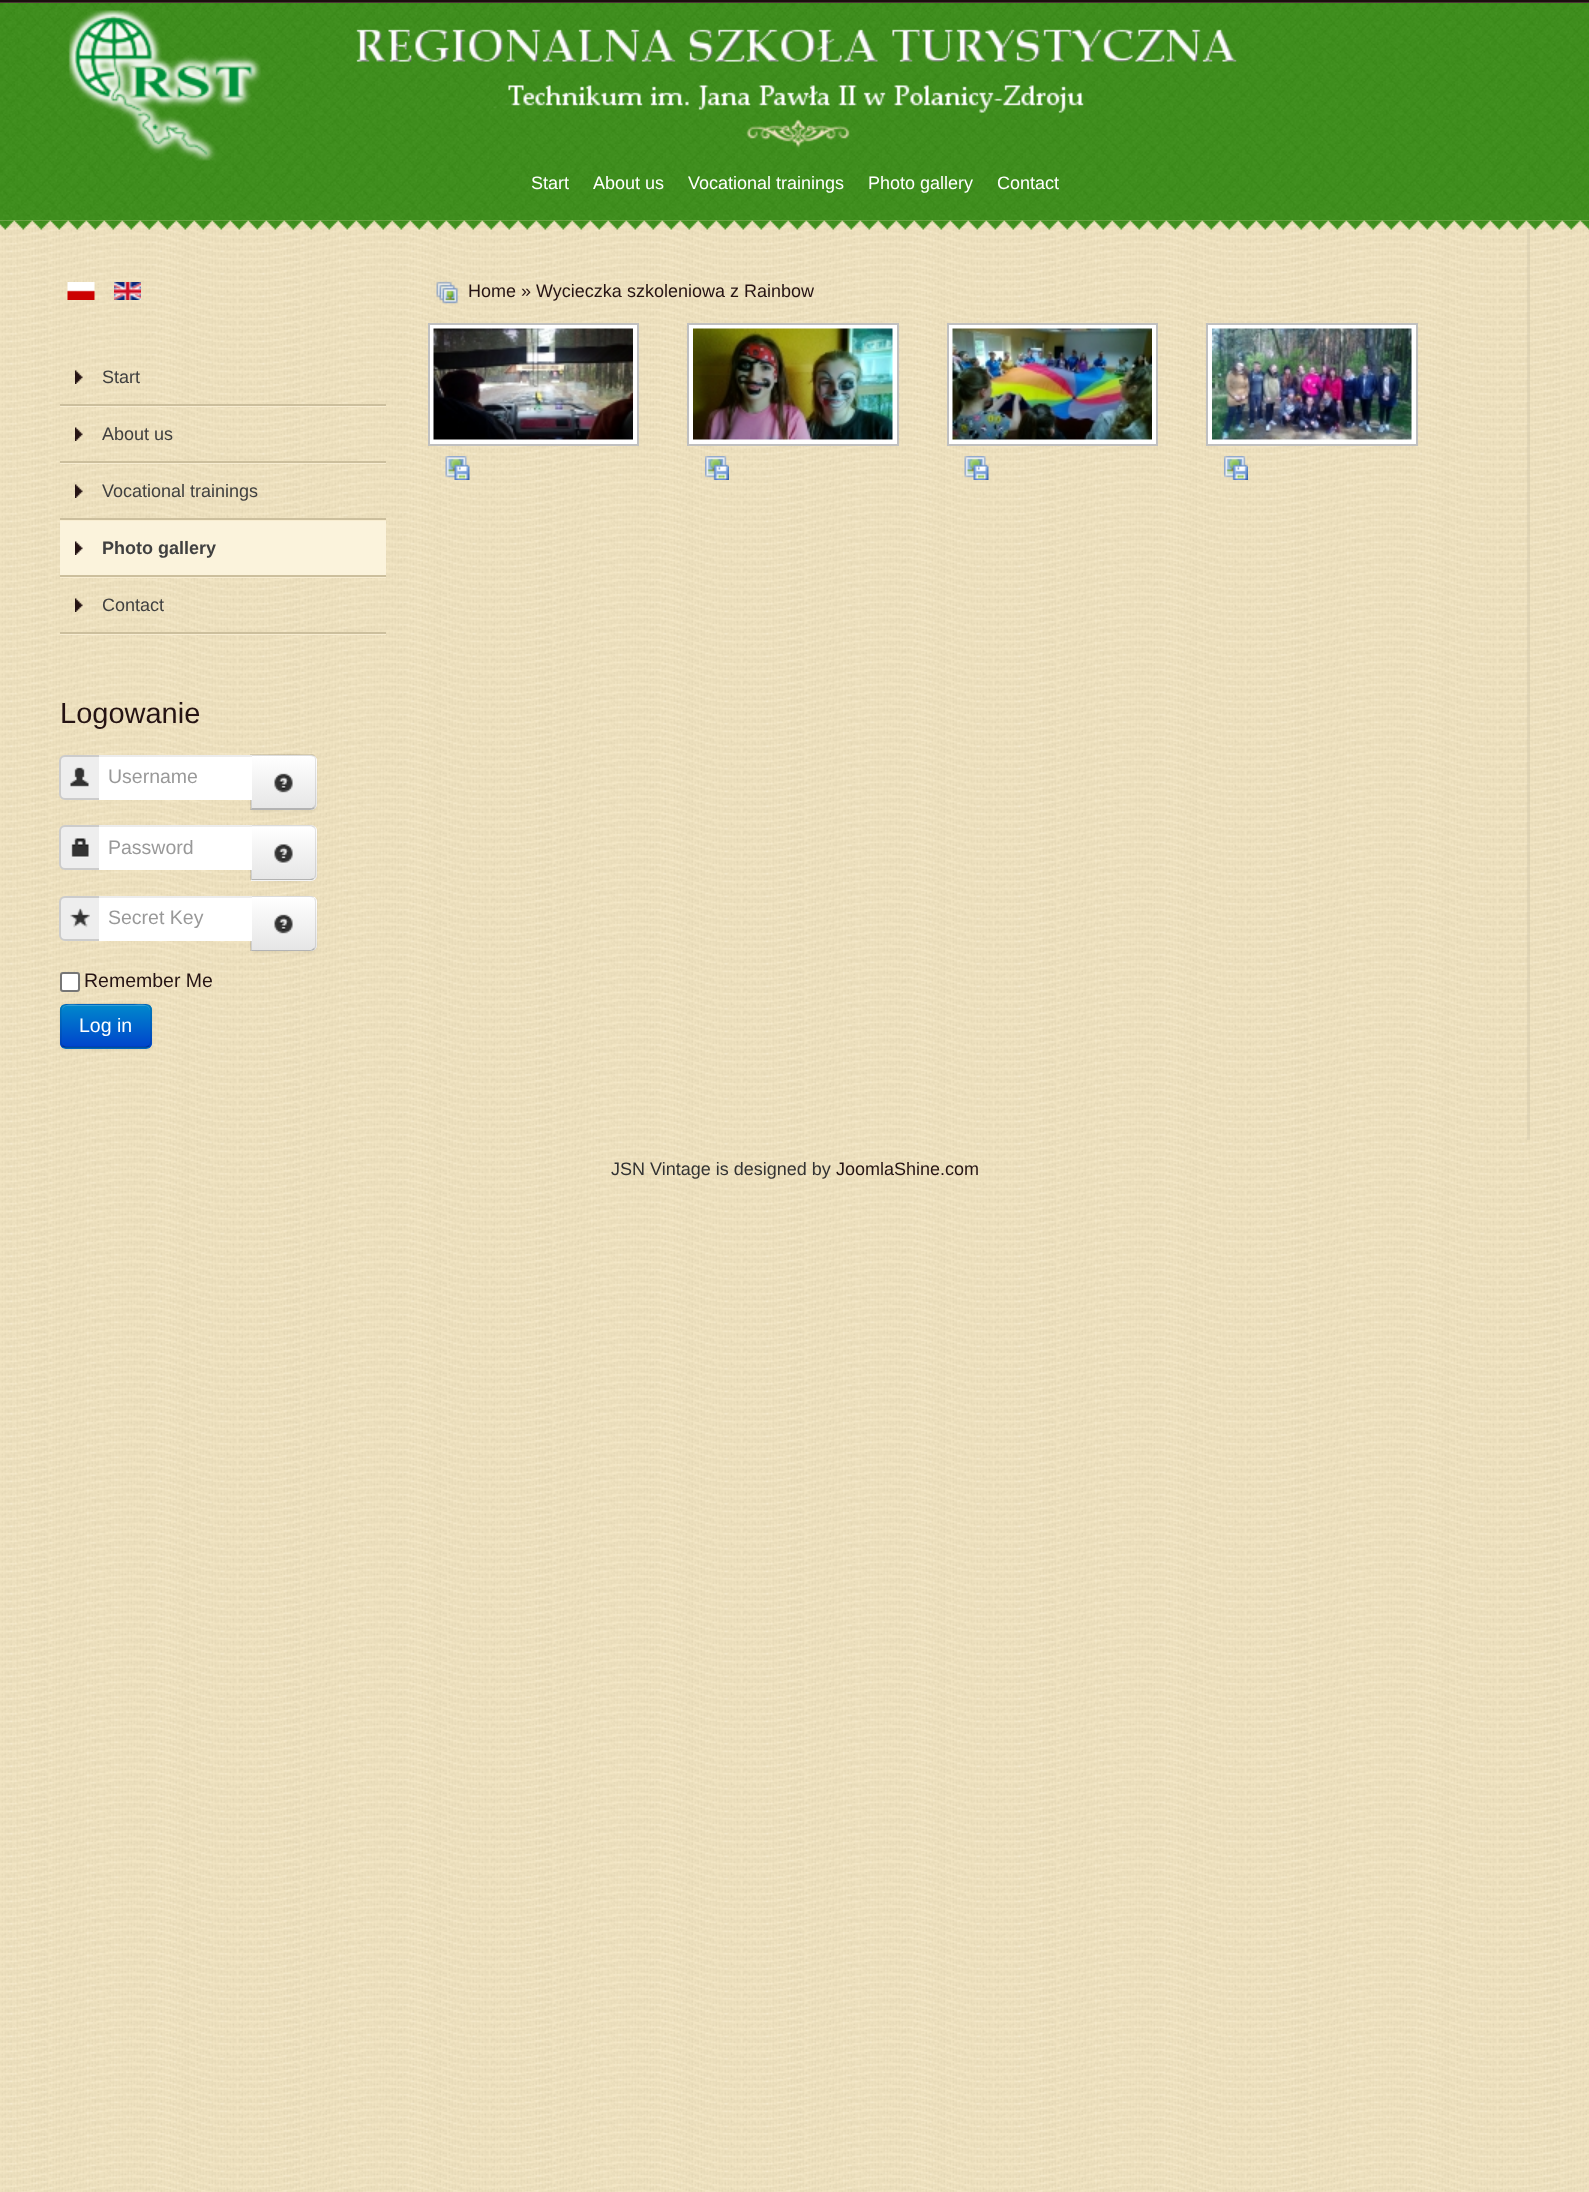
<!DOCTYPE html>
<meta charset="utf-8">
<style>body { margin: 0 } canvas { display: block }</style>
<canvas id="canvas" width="1589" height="2192"></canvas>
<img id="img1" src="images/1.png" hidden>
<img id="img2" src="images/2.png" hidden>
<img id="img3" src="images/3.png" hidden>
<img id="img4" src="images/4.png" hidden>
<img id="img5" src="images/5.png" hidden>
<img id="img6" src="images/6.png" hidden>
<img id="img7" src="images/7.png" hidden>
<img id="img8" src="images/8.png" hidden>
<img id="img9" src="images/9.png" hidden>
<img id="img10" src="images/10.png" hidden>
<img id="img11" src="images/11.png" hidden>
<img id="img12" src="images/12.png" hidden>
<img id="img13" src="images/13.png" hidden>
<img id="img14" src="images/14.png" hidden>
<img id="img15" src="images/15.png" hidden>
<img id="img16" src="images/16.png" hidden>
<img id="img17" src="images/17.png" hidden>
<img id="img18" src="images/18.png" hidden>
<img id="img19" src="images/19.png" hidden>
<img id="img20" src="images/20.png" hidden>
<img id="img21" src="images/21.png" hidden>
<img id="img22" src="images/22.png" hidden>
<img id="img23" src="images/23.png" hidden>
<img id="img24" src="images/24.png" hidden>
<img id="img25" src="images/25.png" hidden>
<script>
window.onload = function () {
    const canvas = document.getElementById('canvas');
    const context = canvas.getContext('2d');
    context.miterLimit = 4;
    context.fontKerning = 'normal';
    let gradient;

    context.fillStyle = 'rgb(255, 255, 255)';
    context.fillRect(0, 0, 1589, 2192);
    context.drawImage(document.getElementById('img1'), 0, 220, 1589, 1972);
    context.fillStyle = 'rgb(26, 15, 15)';
    context.fillRect(0, 0, 1589, 2);
    context.fillStyle = 'rgb(75, 52, 52)';
    context.fillRect(0, 2, 1589, 1);
    context.fillStyle = 'rgba(199, 191, 164, 0.34)';
    context.fillRect(1527, 229, 3, 911);
    context.drawImage(document.getElementById('img2'), 0, 220, 1589, 10);
    context.drawImage(document.getElementById('img3'), 0, 3, 1589, 218);
    context.drawImage(document.getElementById('img4'), 68, 10, 1169, 151);
    context.drawImage(document.getElementById('img5'), 436, 281, 22, 23);
    context.fillStyle = 'rgb(255, 255, 255)';
    context.beginPath();
    context.rect(429, 324, 209, 121);
    context.fill();
    context.strokeStyle = 'rgb(192, 192, 192)';
    context.lineWidth = 2;
    context.stroke();
    context.drawImage(document.getElementById('img6'), 433, 328, 200, 112);
    context.drawImage(document.getElementById('img7'), 445, 456, 25, 24);
    context.beginPath();
    context.rect(688, 324, 210, 121);
    context.fill();
    context.stroke();
    context.drawImage(document.getElementById('img8'), 693, 328, 200, 112);
    context.drawImage(document.getElementById('img9'), 705, 456, 24, 24);
    context.beginPath();
    context.rect(948, 324, 209, 121);
    context.fill();
    context.stroke();
    context.drawImage(document.getElementById('img10'), 952, 328, 200, 112);
    context.drawImage(document.getElementById('img11'), 964, 456, 25, 24);
    context.beginPath();
    context.rect(1207, 324, 210, 121);
    context.fill();
    context.stroke();
    context.drawImage(document.getElementById('img12'), 1212, 328, 200, 112);
    context.drawImage(document.getElementById('img13'), 1224, 456, 24, 24);
    context.drawImage(document.getElementById('img14'), 67, 282, 28, 18);
    context.drawImage(document.getElementById('img15'), 114, 282, 27, 18);
    context.fillStyle = 'rgb(248, 237, 209)';
    context.fillRect(60, 406, 326, 1);
    context.fillStyle = 'rgb(204, 191, 157)';
    context.fillRect(60, 404, 326, 2);
    context.drawImage(document.getElementById('img16'), 75, 370, 8, 14);
    context.fillStyle = 'rgb(248, 237, 209)';
    context.fillRect(60, 463, 326, 1);
    context.fillStyle = 'rgb(204, 191, 157)';
    context.fillRect(60, 461, 326, 2);
    context.drawImage(document.getElementById('img17'), 75, 427, 8, 14);
    context.fillStyle = 'rgb(248, 237, 209)';
    context.fillRect(60, 520, 326, 1);
    context.fillStyle = 'rgb(204, 191, 157)';
    context.fillRect(60, 518, 326, 2);
    context.drawImage(document.getElementById('img18'), 75, 484, 8, 14);
    context.fillStyle = 'rgb(248, 237, 209)';
    context.fillRect(60, 577, 326, 1);
    context.fillStyle = 'rgb(251, 243, 220)';
    context.fillRect(60, 521, 326, 54);
    context.fillStyle = 'rgb(204, 191, 157)';
    context.fillRect(60, 575, 326, 2);
    context.drawImage(document.getElementById('img19'), 75, 541, 8, 14);
    context.fillStyle = 'rgb(248, 237, 209)';
    context.fillRect(60, 634, 326, 1);
    context.fillStyle = 'rgb(204, 191, 157)';
    context.fillRect(60, 632, 326, 2);
    context.drawImage(document.getElementById('img20'), 75, 598, 8, 14);
    context.fillStyle = 'rgb(238, 238, 238)';
    context.beginPath();
    context.roundRect(60, 756, 40, 43, [5, 0, 0, 5]);
    context.fill();
    context.strokeStyle = 'rgb(204, 204, 204)';
    context.stroke();
    context.drawImage(document.getElementById('img21'), 70, 767, 19, 20);
    context.fillStyle = 'rgba(0, 0, 0, 0.05)';
    context.filter = 'blur(1.5px)';
    context.beginPath();
    context.roundRect(251, 756, 66, 56, 6);
    context.fill();
    context.filter = 'none';
    context.fillStyle = 'rgb(245, 245, 245)';
    context.beginPath();
    context.roundRect(251, 755, 66, 55, [0, 6, 6, 0]);
    context.fill();
    context.save();
    context.beginPath();
    context.roundRect(251, 755, 66, 55, [0, 6, 6, 0]);
    context.clip();
    gradient = context.createLinearGradient(284, 756, 284, 809);
    gradient.addColorStop(0, 'rgb(255, 255, 255)');
    gradient.addColorStop(1, 'rgb(230, 230, 230)');
    context.fillStyle = gradient;
    context.fillRect(251, 756, 66, 53);
    context.restore();
    context.fillStyle = 'rgba(0, 0, 0, 0.1)';
    context.beginPath();
    context.moveTo(252, 756);
    context.lineTo(250, 754);
    context.lineTo(313, 754);
    context.lineTo(315, 756);
    context.lineTo(314, 757);
    context.bezierCurveTo(313, 757, 312, 756, 310, 756);
    context.closePath();
    context.fill();
    context.beginPath();
    context.moveTo(315, 756);
    context.bezierCurveTo(316, 757, 316, 759, 316, 760);
    context.lineTo(316, 804);
    context.bezierCurveTo(316, 805, 316, 807, 315, 808);
    context.lineTo(313, 807);
    context.bezierCurveTo(314, 806, 315, 805, 315, 804);
    context.lineTo(315, 760);
    context.bezierCurveTo(315, 759, 315, 758, 314, 757);
    context.closePath();
    context.fill();
    context.fillStyle = 'rgb(179, 179, 179)';
    context.beginPath();
    context.moveTo(250, 810);
    context.lineTo(310, 810);
    context.bezierCurveTo(312, 810, 314, 809, 315, 808);
    context.lineTo(313, 807);
    context.bezierCurveTo(313, 808, 311, 808, 310, 808);
    context.lineTo(252, 808);
    context.closePath();
    context.fill();
    context.fillStyle = 'rgba(0, 0, 0, 0.1)';
    context.beginPath();
    context.moveTo(252, 756);
    context.lineTo(250, 754);
    context.lineTo(250, 810);
    context.lineTo(252, 808);
    context.closePath();
    context.fill();
    context.fillStyle = 'rgb(255, 255, 255)';
    context.fillRect(99, 757, 153, 43);
    context.fillStyle = 'rgb(236, 236, 236)';
    context.fillRect(99, 755, 153, 2);
    context.drawImage(document.getElementById('img22'), 274, 773, 19, 20);
    context.fillStyle = 'rgb(238, 238, 238)';
    context.beginPath();
    context.roundRect(60, 826, 40, 43, [5, 0, 0, 5]);
    context.fill();
    context.stroke();
    context.drawImage(document.getElementById('img23'), 71, 838, 18, 20);
    context.fillStyle = 'rgba(0, 0, 0, 0.05)';
    context.filter = 'blur(1.5px)';
    context.beginPath();
    context.roundRect(251, 827, 66, 55, 6);
    context.fill();
    context.filter = 'none';
    context.fillStyle = 'rgb(245, 245, 245)';
    context.beginPath();
    context.roundRect(251, 825, 66, 56, [0, 6, 6, 0]);
    context.fill();
    context.save();
    context.beginPath();
    context.roundRect(251, 825, 66, 56, [0, 6, 6, 0]);
    context.clip();
    gradient = context.createLinearGradient(284, 827, 284, 879);
    gradient.addColorStop(0, 'rgb(255, 255, 255)');
    gradient.addColorStop(1, 'rgb(230, 230, 230)');
    context.fillStyle = gradient;
    context.fillRect(251, 827, 66, 52);
    context.restore();
    context.fillStyle = 'rgba(0, 0, 0, 0.1)';
    context.beginPath();
    context.moveTo(252, 826);
    context.lineTo(311, 826);
    context.lineTo(314, 828);
    context.lineTo(315, 827);
    context.bezierCurveTo(314, 826, 312, 825, 310, 825);
    context.lineTo(250, 825);
    context.closePath();
    context.fill();
    context.fillStyle = 'rgb(179, 179, 179)';
    context.beginPath();
    context.moveTo(314, 878);
    context.bezierCurveTo(314, 880, 312, 880, 310, 880);
    context.lineTo(251, 880);
    context.lineTo(252, 879);
    context.lineTo(310, 879);
    context.bezierCurveTo(312, 879, 313, 878, 314, 878);
    context.closePath();
    context.fill();
    context.fillStyle = 'rgba(0, 0, 0, 0.1)';
    context.beginPath();
    context.moveTo(251, 880);
    context.lineTo(250, 880);
    context.lineTo(250, 825);
    context.lineTo(252, 826);
    context.lineTo(252, 879);
    context.closePath();
    context.fill();
    context.fillStyle = 'rgb(255, 255, 255)';
    context.fillRect(99, 827, 153, 43);
    context.fillStyle = 'rgb(236, 236, 236)';
    context.fillRect(99, 825, 153, 2);
    context.fillStyle = 'rgba(0, 0, 0, 0.1)';
    context.beginPath();
    context.moveTo(315, 827);
    context.bezierCurveTo(316, 828, 316, 830, 316, 831);
    context.lineTo(316, 874);
    context.bezierCurveTo(316, 876, 316, 878, 314, 878);
    context.bezierCurveTo(314, 877, 315, 876, 315, 874);
    context.lineTo(315, 831);
    context.bezierCurveTo(315, 830, 315, 829, 314, 828);
    context.closePath();
    context.fill();
    context.drawImage(document.getElementById('img24'), 274, 844, 19, 20);
    context.fillStyle = 'rgb(238, 238, 238)';
    context.beginPath();
    context.roundRect(60, 897, 40, 43, [5, 0, 0, 5]);
    context.fill();
    context.stroke();
    context.drawImage(document.getElementById('img25'), 70, 908, 20, 20);
    context.fillStyle = 'rgba(0, 0, 0, 0.05)';
    context.filter = 'blur(1.5px)';
    context.beginPath();
    context.roundRect(251, 897, 66, 56, 6);
    context.fill();
    context.filter = 'none';
    context.fillStyle = 'rgb(245, 245, 245)';
    context.beginPath();
    context.roundRect(251, 896, 66, 55, [0, 6, 6, 0]);
    context.fill();
    context.save();
    context.beginPath();
    context.roundRect(251, 896, 66, 55, [0, 6, 6, 0]);
    context.clip();
    gradient = context.createLinearGradient(284, 897, 284, 950);
    gradient.addColorStop(0, 'rgb(255, 255, 255)');
    gradient.addColorStop(1, 'rgb(230, 230, 230)');
    context.fillStyle = gradient;
    context.fillRect(251, 897, 66, 53);
    context.restore();
    context.fillStyle = 'rgba(0, 0, 0, 0.1)';
    context.beginPath();
    context.moveTo(252, 897);
    context.lineTo(310, 897);
    context.bezierCurveTo(312, 897, 313, 898, 314, 898);
    context.bezierCurveTo(314, 896, 312, 896, 310, 896);
    context.lineTo(251, 896);
    context.closePath();
    context.fill();
    context.beginPath();
    context.moveTo(314, 898);
    context.bezierCurveTo(316, 898, 316, 900, 316, 902);
    context.lineTo(316, 945);
    context.bezierCurveTo(316, 946, 316, 948, 315, 949);
    context.lineTo(314, 948);
    context.bezierCurveTo(315, 947, 315, 946, 315, 945);
    context.lineTo(315, 902);
    context.bezierCurveTo(315, 900, 314, 899, 314, 898);
    context.closePath();
    context.fill();
    context.fillStyle = 'rgb(179, 179, 179)';
    context.beginPath();
    context.moveTo(250, 951);
    context.lineTo(310, 951);
    context.bezierCurveTo(312, 951, 314, 950, 315, 949);
    context.lineTo(314, 948);
    context.lineTo(311, 950);
    context.lineTo(252, 950);
    context.closePath();
    context.fill();
    context.fillStyle = 'rgba(0, 0, 0, 0.1)';
    context.beginPath();
    context.moveTo(252, 897);
    context.lineTo(250, 896);
    context.lineTo(250, 951);
    context.lineTo(252, 950);
    context.closePath();
    context.fill();
    context.fillStyle = 'rgb(255, 255, 255)';
    context.fillRect(99, 898, 153, 43);
    context.fillStyle = 'rgb(236, 236, 236)';
    context.fillRect(99, 896, 153, 2);
    context.drawImage(document.getElementById('img22'), 274, 914, 19, 20);
    context.fillStyle = 'rgb(255, 255, 255)';
    context.beginPath();
    context.roundRect(61, 973, 18, 18, 2);
    context.fill();
    context.strokeStyle = 'rgb(118, 118, 118)';
    context.stroke();
    context.fillStyle = 'rgba(0, 0, 0, 0.05)';
    context.filter = 'blur(1.5px)';
    context.beginPath();
    context.roundRect(60, 1005, 92, 45, 6);
    context.fill();
    context.filter = 'none';
    context.fillStyle = 'rgb(0, 109, 204)';
    context.beginPath();
    context.roundRect(60, 1004, 92, 45, 6);
    context.fill();
    context.save();
    context.beginPath();
    context.roundRect(60, 1004, 92, 45, 6);
    context.clip();
    gradient = context.createLinearGradient(106, 1005, 106, 1047);
    gradient.addColorStop(0, 'rgb(0, 136, 204)');
    gradient.addColorStop(1, 'rgb(0, 68, 204)');
    context.fillStyle = gradient;
    context.fillRect(60, 1005, 92, 42);
    context.restore();
    context.fillStyle = 'rgb(51, 159, 214)';
    context.beginPath();
    context.moveTo(66, 1006);
    context.lineTo(146, 1006);
    context.bezierCurveTo(148, 1006, 150, 1009, 150, 1011);
    context.bezierCurveTo(150, 1002, 138, 1005, 132, 1005);
    context.lineTo(80, 1005);
    context.bezierCurveTo(74, 1005, 62, 1002, 62, 1011);
    context.bezierCurveTo(62, 1009, 64, 1006, 66, 1006);
    context.closePath();
    context.fill();
    context.beginPath();
    context.moveTo(149, 1046);
    context.lineTo(146, 1047.5);
    context.lineTo(65.5, 1047.5);
    context.lineTo(62.5, 1046);
    context.strokeStyle = 'rgba(0, 0, 0, 0.25)';
    context.lineWidth = 1.5;
    context.stroke();
    context.beginPath();
    context.moveTo(62.5, 1046);
    context.bezierCurveTo(60, 1044, 61, 1040, 61, 1037);
    context.lineTo(61, 1026);
    context.bezierCurveTo(61, 1003, 56.5, 1004, 79, 1004);
    context.lineTo(132, 1004);
    context.bezierCurveTo(155, 1004, 151, 1003, 151, 1026);
    context.lineTo(151, 1037);
    context.bezierCurveTo(151, 1040, 151.5, 1044, 149, 1046);
    context.strokeStyle = 'rgba(0, 0, 0, 0.1)';
    context.stroke();
    context.font = '18px Liberation Sans';
    context.fillStyle = 'rgb(255, 255, 255)';
    context.fillText('Start', 531, 189);
    context.fillText('About us', 593, 189);
    context.fillText('Vocational trainings', 688, 189);
    context.fillText('Photo gallery', 868, 189);
    context.fillText('Contact', 997, 189);
    context.fillStyle = 'rgb(37, 19, 19)';
    context.fillText('Home » Wycieczka szkoleniowa z Rainbow', 468, 297);
    context.fillStyle = 'rgb(64, 64, 64)';
    context.fillText('Start', 102, 383);
    context.fillText('About us', 102, 440);
    context.fillText('Vocational trainings', 102, 497);
    context.font = 'bold 18px Liberation Sans';
    context.fillText('Photo gallery', 102, 554);
    context.font = '18px Liberation Sans';
    context.fillText('Contact', 102, 611);
    context.font = '29px Liberation Sans';
    context.fillStyle = 'rgb(37, 19, 19)';
    context.fillText('Logowanie', 60, 723);
    context.font = '19.5px Liberation Sans';
    context.fillStyle = 'rgb(153, 153, 153)';
    context.fillText('Username', 108, 783);
    context.fillText('Password', 108, 854);
    context.fillText('Secret Key', 108, 924);
    context.fillStyle = 'rgb(37, 19, 19)';
    context.fillText('Remember Me', 84, 987);
    context.fillStyle = 'rgb(255, 255, 255)';
    context.fillText('Log in', 79, 1032);
    context.font = '18px Liberation Sans';
    context.fillStyle = 'rgb(51, 51, 51)';
    context.fillText('JSN Vintage is designed by', 611, 1175);
    context.fillStyle = 'rgb(37, 19, 19)';
    context.fillText('JoomlaShine.com', 836, 1175);
};
</script>
